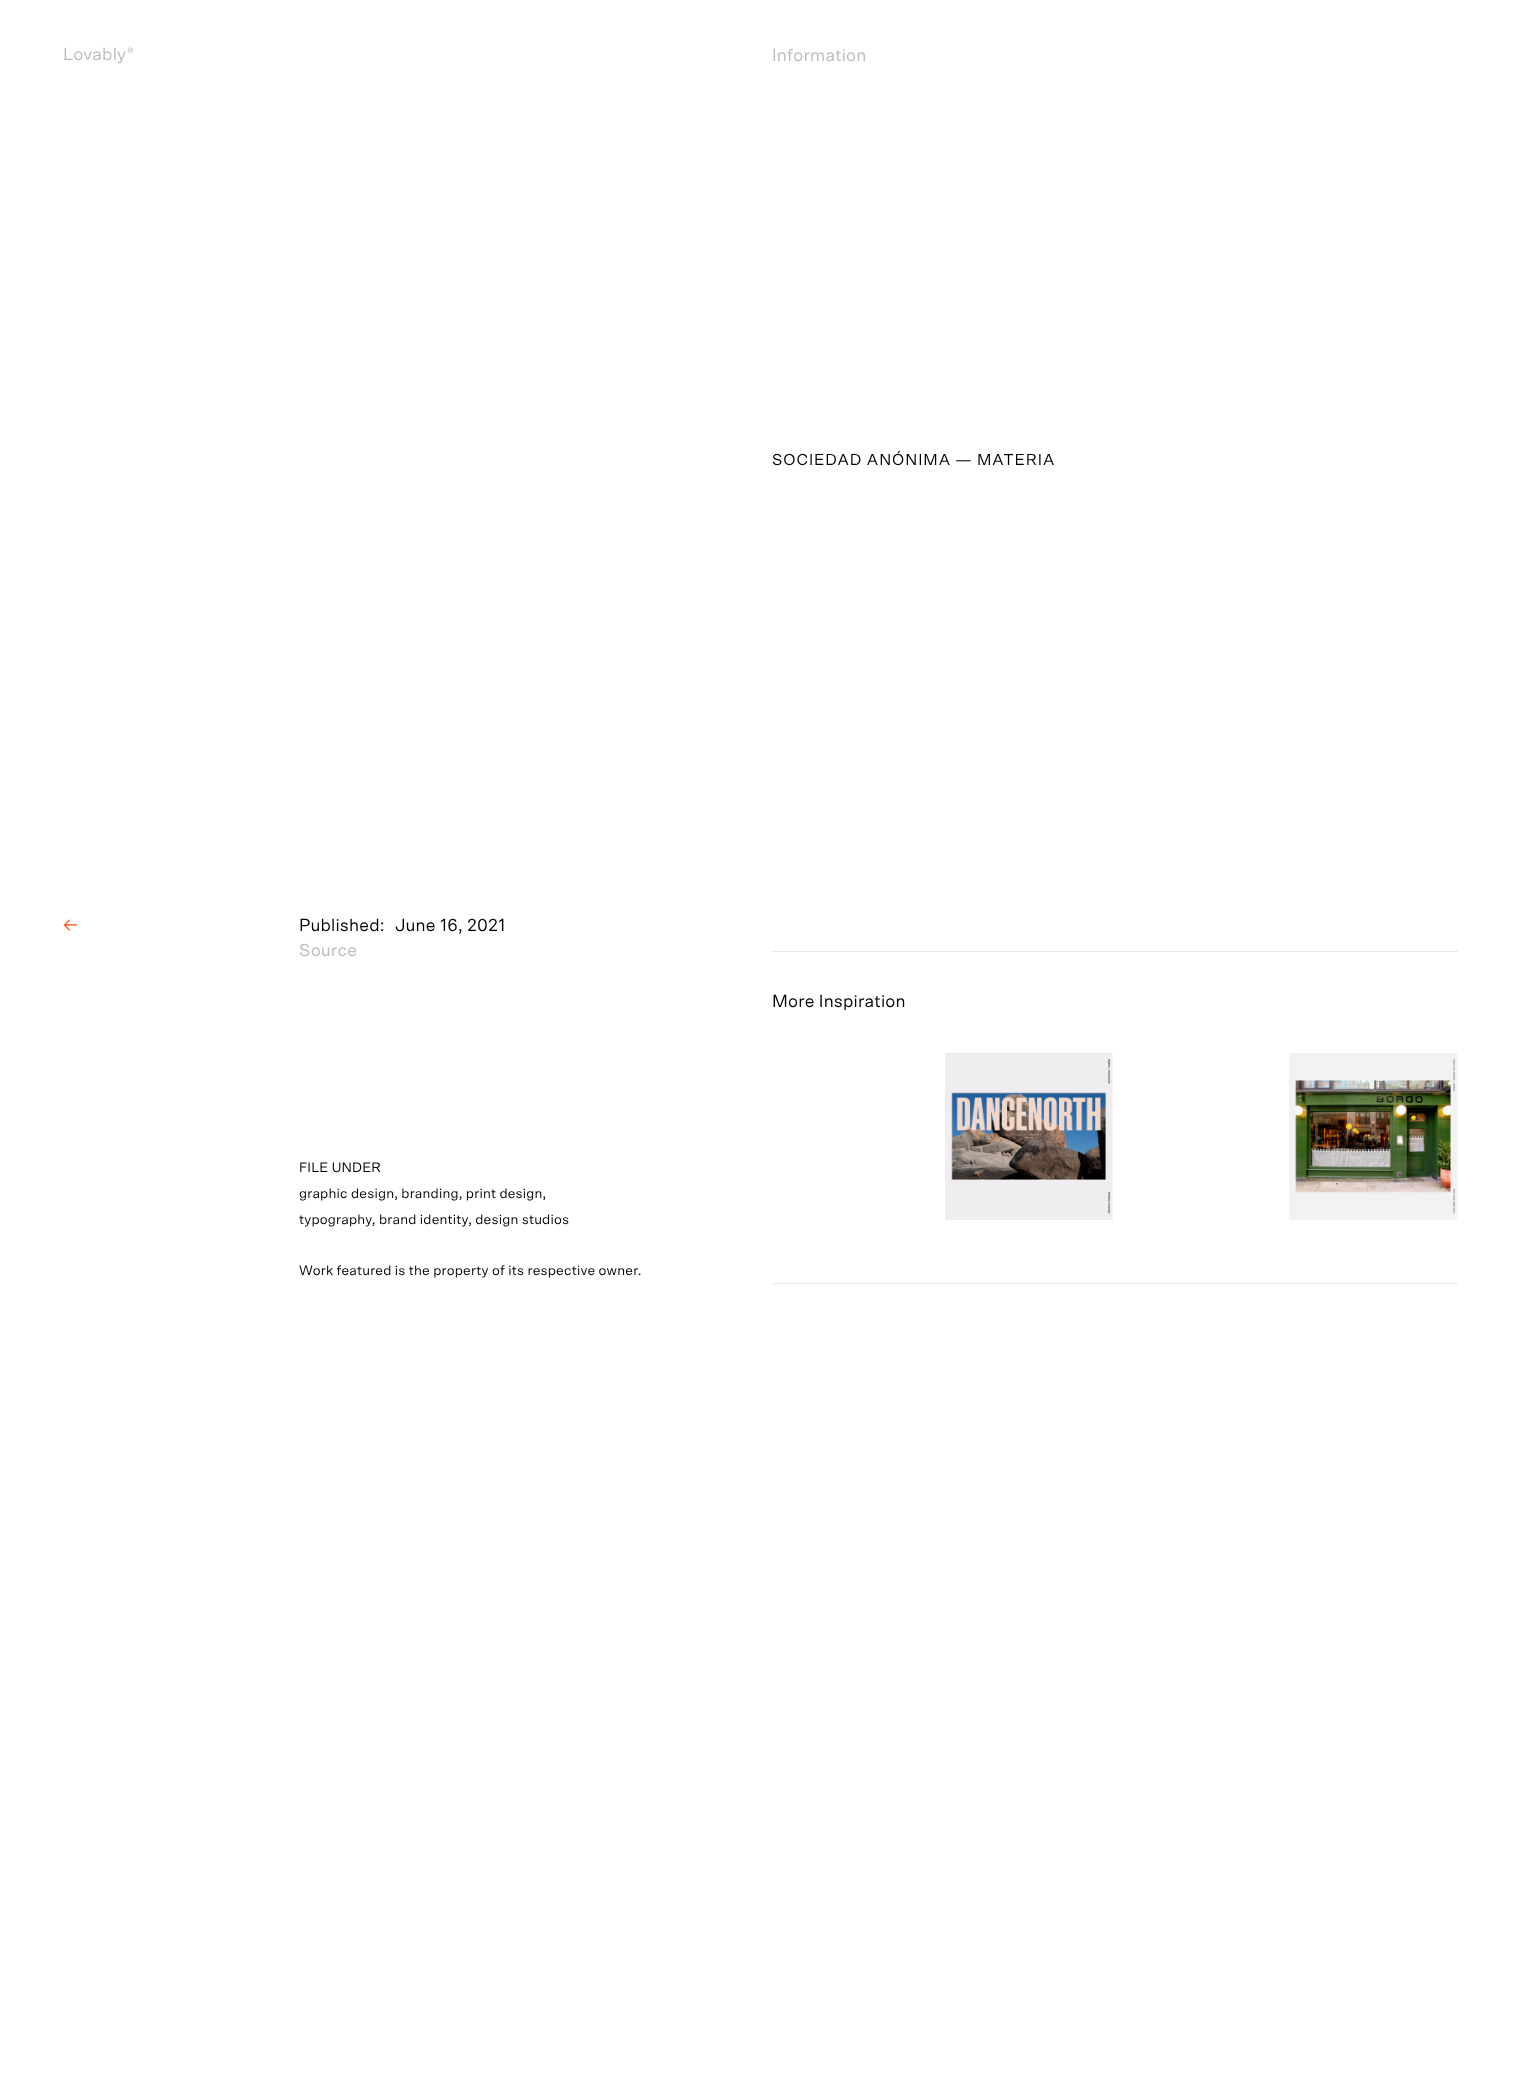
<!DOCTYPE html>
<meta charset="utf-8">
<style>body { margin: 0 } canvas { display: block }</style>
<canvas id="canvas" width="1519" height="2073"></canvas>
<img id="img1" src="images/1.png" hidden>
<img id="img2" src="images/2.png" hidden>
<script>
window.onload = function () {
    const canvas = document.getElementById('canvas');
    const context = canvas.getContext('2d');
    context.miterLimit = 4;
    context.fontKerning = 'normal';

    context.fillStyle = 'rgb(255, 255, 255)';
    context.fillRect(0, 0, 1519, 2073);
    context.fillStyle = 'rgb(231, 231, 231)';
    context.fillRect(773, 951, 685, 1);
    context.drawImage(document.getElementById('img1'), 945, 1052, 168, 168);
    context.drawImage(document.getElementById('img2'), 1289, 1053, 168, 167);
    context.fillRect(773, 1283, 685, 1);
    context.letterSpacing = '0.18px';
    context.font = '17.5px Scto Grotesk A';
    context.fillStyle = 'rgb(187, 187, 187)';
    context.fillText('Lovably', 63, 60);
    context.font = '12px Scto Grotesk A';
    context.fillText('®', 127, 56);
    context.font = '17.5px Scto Grotesk A';
    context.fillText('Information', 772, 61);
    context.letterSpacing = '0.95px';
    context.font = '15.9px Scto Grotesk A';
    context.fillStyle = 'rgb(0, 0, 0)';
    context.fillText('SOCIEDAD ANÓNIMA — MATERIA', 772, 465);
    context.letterSpacing = '0.18px';
    context.font = '17.5px Scto Grotesk A';
    context.fillStyle = 'rgb(254, 80, 0)';
    context.fillText('←', 63, 931);
    context.fillStyle = 'rgb(0, 0, 0)';
    context.fillText('Published:', 299, 931);
    context.fillText('June 16, 2021', 395, 931);
    context.fillStyle = 'rgb(187, 187, 187)';
    context.fillText('Source', 299, 956);
    context.fillStyle = 'rgb(0, 0, 0)';
    context.fillText('More Inspiration', 772, 1007);
    context.font = '13.75px Scto Grotesk A';
    context.fillText('FILE UNDER', 299, 1172);
    context.fillText('graphic design, branding, print design,', 299, 1198);
    context.fillText('typography, brand identity, design studios', 299, 1224);
    context.fillText('Work featured is the property of its respective owner.', 299, 1275);
};
</script>
